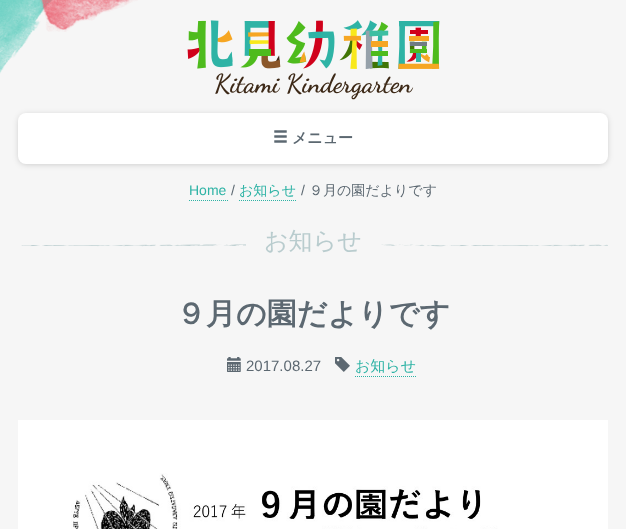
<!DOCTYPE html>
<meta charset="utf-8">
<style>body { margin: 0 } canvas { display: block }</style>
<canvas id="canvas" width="626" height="529"></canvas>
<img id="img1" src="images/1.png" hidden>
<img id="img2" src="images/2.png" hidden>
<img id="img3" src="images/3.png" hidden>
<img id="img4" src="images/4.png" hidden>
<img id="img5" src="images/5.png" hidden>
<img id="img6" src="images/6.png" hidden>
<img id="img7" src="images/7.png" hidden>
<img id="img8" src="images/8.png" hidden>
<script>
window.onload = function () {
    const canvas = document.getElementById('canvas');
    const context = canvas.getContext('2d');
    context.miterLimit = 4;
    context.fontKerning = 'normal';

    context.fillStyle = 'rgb(246, 246, 246)';
    context.fillRect(0, 0, 626, 529);
    context.drawImage(document.getElementById('img1'), 0, 0, 138, 74);
    context.drawImage(document.getElementById('img2'), 187, 20, 253, 49);
    context.fillStyle = 'rgba(0, 0, 0, 0.2)';
    context.filter = 'blur(3px)';
    context.beginPath();
    context.roundRect(19, 115, 588, 49, 7);
    context.fill();
    context.filter = 'none';
    context.fillStyle = 'rgb(255, 255, 255)';
    context.beginPath();
    context.roundRect(18, 113, 590, 51, 8);
    context.fill();
    context.drawImage(document.getElementById('img3'), 274, 130, 13, 13);
    context.beginPath();
    context.moveTo(189, 200.5);
    context.lineTo(228, 200.5);
    context.strokeStyle = 'rgb(46, 179, 165)';
    context.setLineDash([1, 1]);
    context.stroke();
    context.beginPath();
    context.moveTo(239, 200.5);
    context.lineTo(297, 200.5);
    context.stroke();
    context.drawImage(document.getElementById('img4'), 21, 244, 225, 3);
    context.drawImage(document.getElementById('img5'), 381, 244, 227, 3);
    context.drawImage(document.getElementById('img6'), 227, 357, 14, 15);
    context.drawImage(document.getElementById('img7'), 335, 357, 15, 15);
    context.beginPath();
    context.moveTo(355, 376.5);
    context.lineTo(417, 376.5);
    context.stroke();
    context.drawImage(document.getElementById('img8'), 18, 420, 590, 109);
    context.font = 'bold 26px Dancing Script';
    context.fillStyle = 'rgb(61, 41, 23)';
    context.fillText('Kitami Kindergarten', 214, 92);
    context.font = 'bold 15px WenQuanYi Zen Hei';
    context.fillStyle = 'rgb(92, 104, 113)';
    context.fillText('メニュー', 292, 143);
    context.font = '14px Liberation Sans';
    context.fillStyle = 'rgb(46, 179, 165)';
    context.fillText('Home', 189, 195);
    context.fillStyle = 'rgb(92, 104, 113)';
    context.fillText('/', 231, 195);
    context.font = '500 14px WenQuanYi Zen Hei';
    context.fillStyle = 'rgb(46, 179, 165)';
    context.fillText('お知らせ', 239, 195);
    context.font = '14px Liberation Sans';
    context.fillStyle = 'rgb(92, 104, 113)';
    context.fillText('/', 301, 195);
    context.font = '500 14px WenQuanYi Zen Hei';
    context.fillText('９月の園だよりです', 309, 195);
    context.font = '500 24px WenQuanYi Zen Hei';
    context.fillStyle = 'rgb(185, 204, 206)';
    context.fillText('お知らせ', 264, 249);
    context.font = 'bold 30px WenQuanYi Zen Hei';
    context.fillStyle = 'rgb(92, 104, 113)';
    context.fillText('９月の園だよりです', 176, 324);
    context.font = '15px Liberation Sans';
    context.fillText('2017.08.27', 246, 371);
    context.font = '500 15px WenQuanYi Zen Hei';
    context.fillStyle = 'rgb(46, 179, 165)';
    context.fillText('お知らせ', 355, 371);
};
</script>
